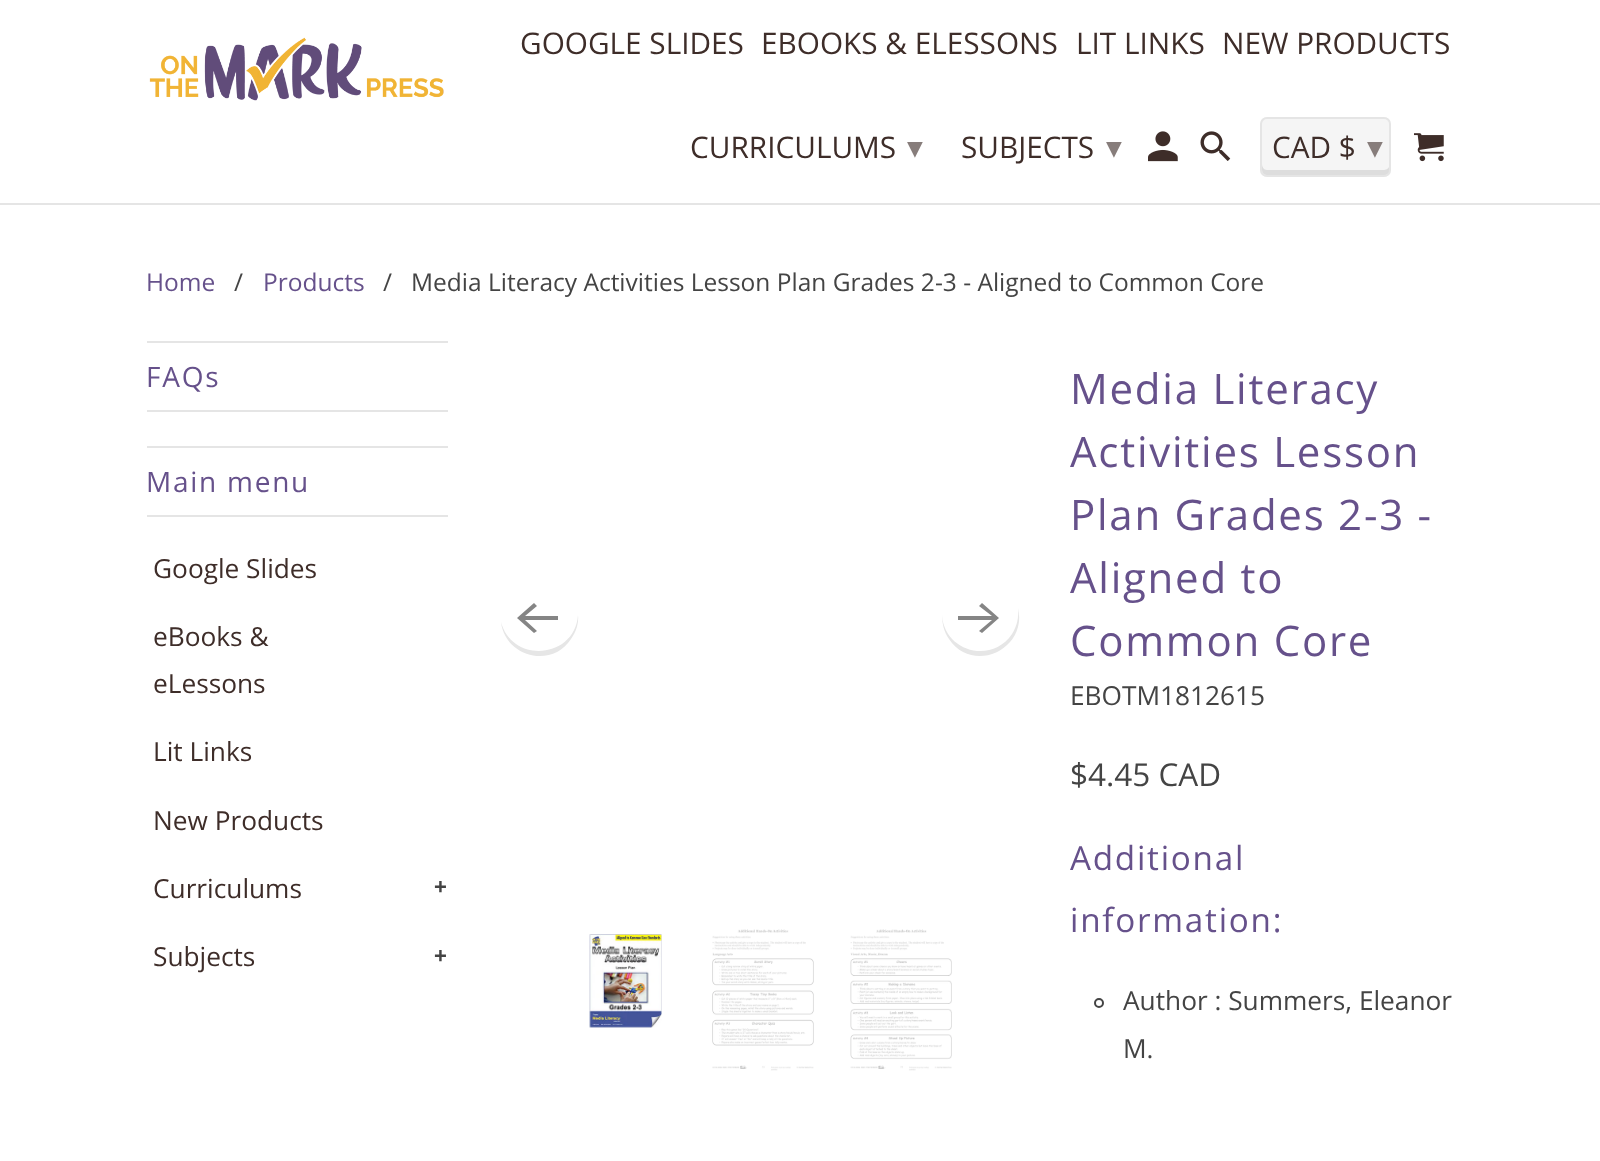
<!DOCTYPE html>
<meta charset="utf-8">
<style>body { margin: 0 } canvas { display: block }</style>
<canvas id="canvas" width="1600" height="1161"></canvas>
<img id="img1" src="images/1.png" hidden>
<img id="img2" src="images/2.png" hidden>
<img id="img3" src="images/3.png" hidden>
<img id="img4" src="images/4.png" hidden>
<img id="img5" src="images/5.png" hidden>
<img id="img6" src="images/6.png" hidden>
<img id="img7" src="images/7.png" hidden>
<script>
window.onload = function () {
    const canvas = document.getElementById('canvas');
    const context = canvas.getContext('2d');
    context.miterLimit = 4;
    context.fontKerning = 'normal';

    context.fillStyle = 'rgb(255, 255, 255)';
    context.fillRect(0, 0, 1600, 1161);
    context.fillStyle = 'rgb(229, 229, 229)';
    context.fillRect(0, 203, 1600, 2);
    context.drawImage(document.getElementById('img1'), 149, 37, 295, 64);
    context.drawImage(document.getElementById('img2'), 1148, 131, 30, 31);
    context.drawImage(document.getElementById('img3'), 1200, 131, 31, 30);
    context.fillStyle = 'rgb(245, 245, 245)';
    context.beginPath();
    context.roundRect(1260, 117, 131, 60, 7);
    context.fill();
    context.fillStyle = 'rgb(221, 221, 221)';
    context.beginPath();
    context.moveTo(1262, 164);
    context.lineTo(1262, 170);
    context.bezierCurveTo(1262, 173, 1264, 175, 1267, 175);
    context.lineTo(1385, 175);
    context.bezierCurveTo(1388, 175, 1390, 173, 1390, 170);
    context.lineTo(1390, 164);
    context.bezierCurveTo(1390, 167, 1387, 170, 1384, 170);
    context.lineTo(1267, 170);
    context.bezierCurveTo(1264, 170, 1262, 167, 1262, 164);
    context.closePath();
    context.fill();
    context.beginPath();
    context.roundRect(1261, 118, 129, 58, 6);
    context.strokeStyle = 'rgb(229, 229, 229)';
    context.lineWidth = 2;
    context.stroke();
    context.drawImage(document.getElementById('img4'), 1414, 133, 30, 29);
    context.fillStyle = 'rgb(229, 229, 229)';
    context.fillRect(147, 341, 301, 2);
    context.fillRect(147, 410, 301, 2);
    context.fillRect(147, 446, 301, 2);
    context.fillRect(147, 515, 301, 2);
    context.fillStyle = 'rgb(230, 230, 230)';
    context.beginPath();
    context.moveTo(501, 622);
    context.bezierCurveTo(505, 657, 552, 669, 571, 639);
    context.bezierCurveTo(576, 632, 579, 623, 578, 615);
    context.bezierCurveTo(575, 659, 512, 664, 501, 622);
    context.closePath();
    context.fill();
    context.fillStyle = 'rgb(133, 133, 133)';
    context.beginPath();
    context.moveTo(558, 616);
    context.lineTo(525, 616);
    context.lineTo(537, 606);
    context.lineTo(534, 603);
    context.lineTo(517, 618);
    context.lineTo(534, 633);
    context.lineTo(537, 631);
    context.lineTo(525, 620);
    context.lineTo(558, 620);
    context.closePath();
    context.fill();
    context.fillStyle = 'rgb(230, 230, 230)';
    context.beginPath();
    context.moveTo(942, 615);
    context.bezierCurveTo(942, 623, 944, 632, 949, 639);
    context.bezierCurveTo(973, 675, 1028, 649, 1018, 608);
    context.bezierCurveTo(1019, 617, 1017, 626, 1012, 634);
    context.bezierCurveTo(991, 665, 944, 651, 942, 615);
    context.closePath();
    context.fill();
    context.fillStyle = 'rgb(133, 133, 133)';
    context.beginPath();
    context.moveTo(958, 620);
    context.lineTo(992, 620);
    context.lineTo(979, 631);
    context.lineTo(982, 633);
    context.lineTo(999, 618);
    context.lineTo(982, 603);
    context.lineTo(979, 606);
    context.lineTo(992, 616);
    context.lineTo(958, 616);
    context.closePath();
    context.fill();
    context.drawImage(document.getElementById('img5'), 589, 934, 73, 94);
    context.drawImage(document.getElementById('img6'), 712, 929, 102, 142);
    context.drawImage(document.getElementById('img7'), 850, 929, 102, 142);
    context.beginPath();
    context.arc(1099, 1003, 4, 0, 2 * Math.PI);
    context.strokeStyle = 'rgb(68, 68, 68)';
    context.stroke();
    context.font = '29.75px Open Sans';
    context.fillStyle = 'rgb(62, 45, 41)';
    context.fillText('GOOGLE SLIDES', 520, 54);
    context.fillText('EBOOKS & ELESSONS', 761, 54);
    context.fillText('LIT LINKS', 1076, 54);
    context.fillText('NEW PRODUCTS', 1222, 54);
    context.fillText('CURRICULUMS', 690, 158);
    context.font = '31.5px DejaVu Sans';
    context.fillStyle = 'rgb(135, 125, 123)';
    context.fillText('▾', 907, 158);
    context.font = '29.75px Open Sans';
    context.fillStyle = 'rgb(62, 45, 41)';
    context.fillText('SUBJECTS', 961, 158);
    context.font = '31.5px DejaVu Sans';
    context.fillStyle = 'rgb(135, 125, 123)';
    context.fillText('▾', 1106, 158);
    context.font = '29.75px Open Sans';
    context.fillStyle = 'rgb(62, 45, 41)';
    context.fillText('CAD $', 1272, 158);
    context.font = '31.5px DejaVu Sans';
    context.fillStyle = 'rgb(135, 125, 123)';
    context.fillText('▾', 1367, 158);
    context.font = '24.5px Open Sans';
    context.fillStyle = 'rgb(102, 81, 139)';
    context.fillText('Home', 146, 291);
    context.fillStyle = 'rgb(68, 68, 68)';
    context.fillText('/', 234, 291);
    context.fillStyle = 'rgb(102, 81, 139)';
    context.fillText('Products', 263, 291);
    context.fillStyle = 'rgb(68, 68, 68)';
    context.fillText('/', 383, 291);
    context.fillText('Media Literacy Activities Lesson Plan Grades 2-3 - Aligned to Common Core', 411, 291);
    context.letterSpacing = '1.75px';
    context.font = '28px Open Sans';
    context.fillStyle = 'rgb(102, 81, 139)';
    context.fillText('FAQs', 146, 387);
    context.fillText('Main menu', 146, 492);
    context.letterSpacing = '0px';
    context.font = '26.25px Open Sans';
    context.fillStyle = 'rgb(62, 45, 41)';
    context.fillText('Google Slides', 153, 578);
    context.fillText('eBooks &', 153, 646);
    context.fillText('eLessons', 153, 693);
    context.fillText('Lit Links', 153, 761);
    context.fillText('New Products', 153, 830);
    context.fillText('Curriculums', 153, 898);
    context.font = 'bold 22px Liberation Sans';
    context.fillStyle = 'rgb(68, 68, 68)';
    context.fillText('+', 434, 894);
    context.font = '26.25px Open Sans';
    context.fillStyle = 'rgb(62, 45, 41)';
    context.fillText('Subjects', 153, 966);
    context.font = 'bold 22px Liberation Sans';
    context.fillStyle = 'rgb(68, 68, 68)';
    context.fillText('+', 434, 963);
    context.letterSpacing = '1.75px';
    context.font = '42px Open Sans';
    context.fillStyle = 'rgb(102, 81, 139)';
    context.fillText('Media Literacy', 1070, 404);
    context.fillText('Activities Lesson', 1070, 467);
    context.fillText('Plan Grades 2-3 -', 1070, 530);
    context.fillText('Aligned to', 1070, 593);
    context.fillText('Common Core', 1070, 656);
    context.letterSpacing = '0px';
    context.font = '26.25px Open Sans';
    context.fillStyle = 'rgb(68, 68, 68)';
    context.fillText('EBOTM1812615', 1070, 705);
    context.font = '31.5px Open Sans';
    context.fillText('$4.45 CAD', 1070, 786);
    context.letterSpacing = '1.75px';
    context.font = '33.25px Open Sans';
    context.fillStyle = 'rgb(102, 81, 139)';
    context.fillText('Additional', 1070, 870);
    context.fillText('information:', 1070, 932);
    context.letterSpacing = '0px';
    context.font = '26.25px Open Sans';
    context.fillStyle = 'rgb(68, 68, 68)';
    context.fillText('Author : Summers, Eleanor', 1123, 1010);
    context.fillText('M.', 1123, 1058);
};
</script>
